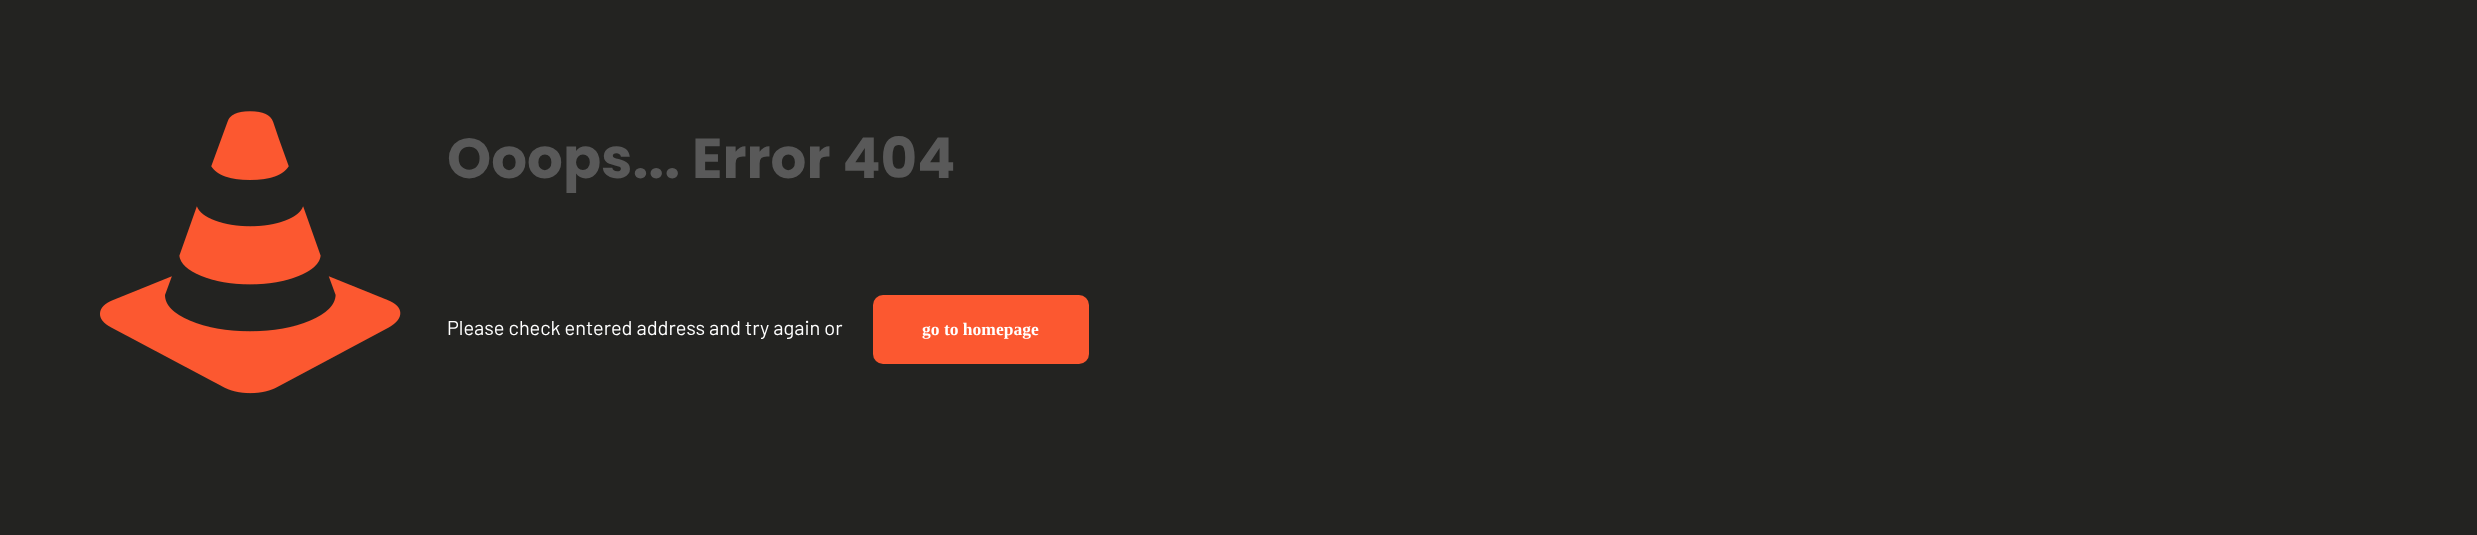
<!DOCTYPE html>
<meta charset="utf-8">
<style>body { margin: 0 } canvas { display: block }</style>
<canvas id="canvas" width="2477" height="535"></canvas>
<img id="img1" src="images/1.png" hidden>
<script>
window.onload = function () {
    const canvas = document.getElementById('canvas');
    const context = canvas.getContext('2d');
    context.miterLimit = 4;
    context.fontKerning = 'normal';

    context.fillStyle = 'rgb(35, 35, 33)';
    context.fillRect(0, 0, 2477, 535);
    context.drawImage(document.getElementById('img1'), 100, 111, 301, 283);
    context.fillStyle = 'rgb(252, 88, 48)';
    context.beginPath();
    context.roundRect(873, 295, 216, 69, 10);
    context.fill();
    context.font = 'bold 56.25px Poppins';
    context.fillStyle = 'rgb(89, 89, 89)';
    context.fillText('Ooops... Error 404', 447, 178);
    context.font = '20px Barlow';
    context.fillStyle = 'rgb(255, 255, 255)';
    context.fillText('Please check entered address and try again or', 447, 335);
    context.font = 'bold 17.5px Liberation Serif';
    context.fillText('go to homepage', 922, 335);
};
</script>
